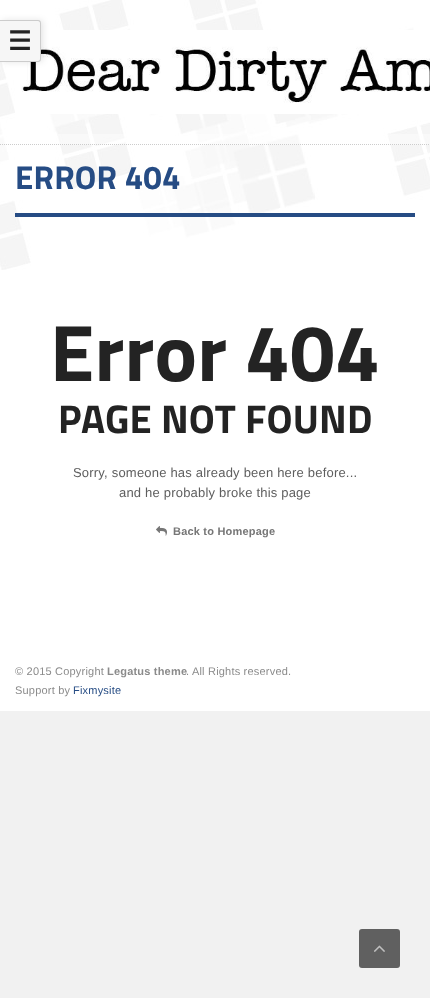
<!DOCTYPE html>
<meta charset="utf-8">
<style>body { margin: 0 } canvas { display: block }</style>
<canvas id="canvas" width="430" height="998"></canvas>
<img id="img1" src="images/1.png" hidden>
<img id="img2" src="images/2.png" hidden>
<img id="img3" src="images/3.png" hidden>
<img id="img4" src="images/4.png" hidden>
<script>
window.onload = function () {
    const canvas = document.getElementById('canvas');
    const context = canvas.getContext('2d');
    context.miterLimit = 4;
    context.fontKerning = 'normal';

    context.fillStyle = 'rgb(241, 241, 241)';
    context.fillRect(0, 0, 430, 998);
    context.fillStyle = 'rgb(255, 255, 255)';
    context.fillRect(0, 270, 430, 441);
    context.drawImage(document.getElementById('img1'), 0, 0, 430, 270);
    context.drawImage(document.getElementById('img2'), 21, 30, 409, 84);
    context.fillStyle = 'rgba(0, 0, 0, 0.1)';
    context.filter = 'blur(3px)';
    context.beginPath();
    context.roundRect(2, 20, 41, 42, 3);
    context.fill();
    context.filter = 'none';
    context.fillStyle = 'rgb(246, 246, 246)';
    context.beginPath();
    context.roundRect(0, 20, 41, 42, [0, 3, 3, 0]);
    context.fill();
    context.fillStyle = 'rgb(204, 204, 204)';
    context.beginPath();
    context.moveTo(0, 20);
    context.lineTo(38, 20);
    context.bezierCurveTo(40, 20, 41, 21, 41, 23);
    context.lineTo(41, 59);
    context.bezierCurveTo(41, 61, 40, 62, 38, 62);
    context.lineTo(0, 62);
    context.closePath();
    context.moveTo(0, 21);
    context.lineTo(38, 21);
    context.bezierCurveTo(39, 21, 40, 22, 40, 23);
    context.lineTo(40, 59);
    context.bezierCurveTo(40, 60, 39, 61, 38, 61);
    context.lineTo(0, 61);
    context.closePath();
    context.fill('evenodd');
    context.fillStyle = 'rgba(255, 255, 255, 0.4)';
    context.fillRect(58, 134, 372, 11);
    context.beginPath();
    context.moveTo(0, 144.5);
    context.lineTo(430, 144.5);
    context.strokeStyle = 'rgb(204, 204, 204)';
    context.setLineDash([1, 1]);
    context.stroke();
    context.fillStyle = 'rgb(38, 76, 132)';
    context.fillRect(15, 213, 400, 4);
    context.drawImage(document.getElementById('img3'), 156, 526, 11, 10);
    context.fillStyle = 'rgb(96, 96, 96)';
    context.beginPath();
    context.roundRect(359, 929, 41, 39, 3);
    context.fill();
    context.drawImage(document.getElementById('img4'), 374, 945, 11, 7);
    context.font = 'bold 26px DejaVu Sans';
    context.fillStyle = 'rgb(35, 35, 35)';
    context.fillText('☰', 8, 50);
    context.letterSpacing = '0.2px';
    context.font = 'bold 33px Titillium Web';
    context.fillStyle = 'rgb(38, 76, 132)';
    context.fillText('ERROR 404', 15, 189);
    context.font = 'bold 80px Titillium Web';
    context.fillStyle = 'rgb(35, 35, 35)';
    context.fillText('Error 404', 50, 381);
    context.font = 'bold 40px Titillium Web';
    context.fillText('PAGE NOT FOUND', 58, 433);
    context.font = '13px Liberation Sans';
    context.fillStyle = 'rgb(94, 94, 94)';
    context.fillText('Sorry, someone has already been here before...', 73, 477);
    context.fillText('and he probably broke this page', 119, 497);
    context.font = 'bold 11px Liberation Sans';
    context.fillStyle = 'rgb(118, 118, 118)';
    context.fillText('Back to Homepage', 173, 535);
    context.font = '11px Liberation Sans';
    context.fillStyle = 'rgb(139, 139, 139)';
    context.fillText('© 2015 Copyright', 15, 675);
    context.font = 'bold 11px Liberation Sans';
    context.fillText('Legatus theme', 107, 675);
    context.font = '11px Liberation Sans';
    context.fillText('. All Rights reserved.', 186, 675);
    context.fillText('Support by', 15, 694);
    context.fillStyle = 'rgb(38, 76, 132)';
    context.fillText('Fixmysite', 73, 694);
};
</script>
